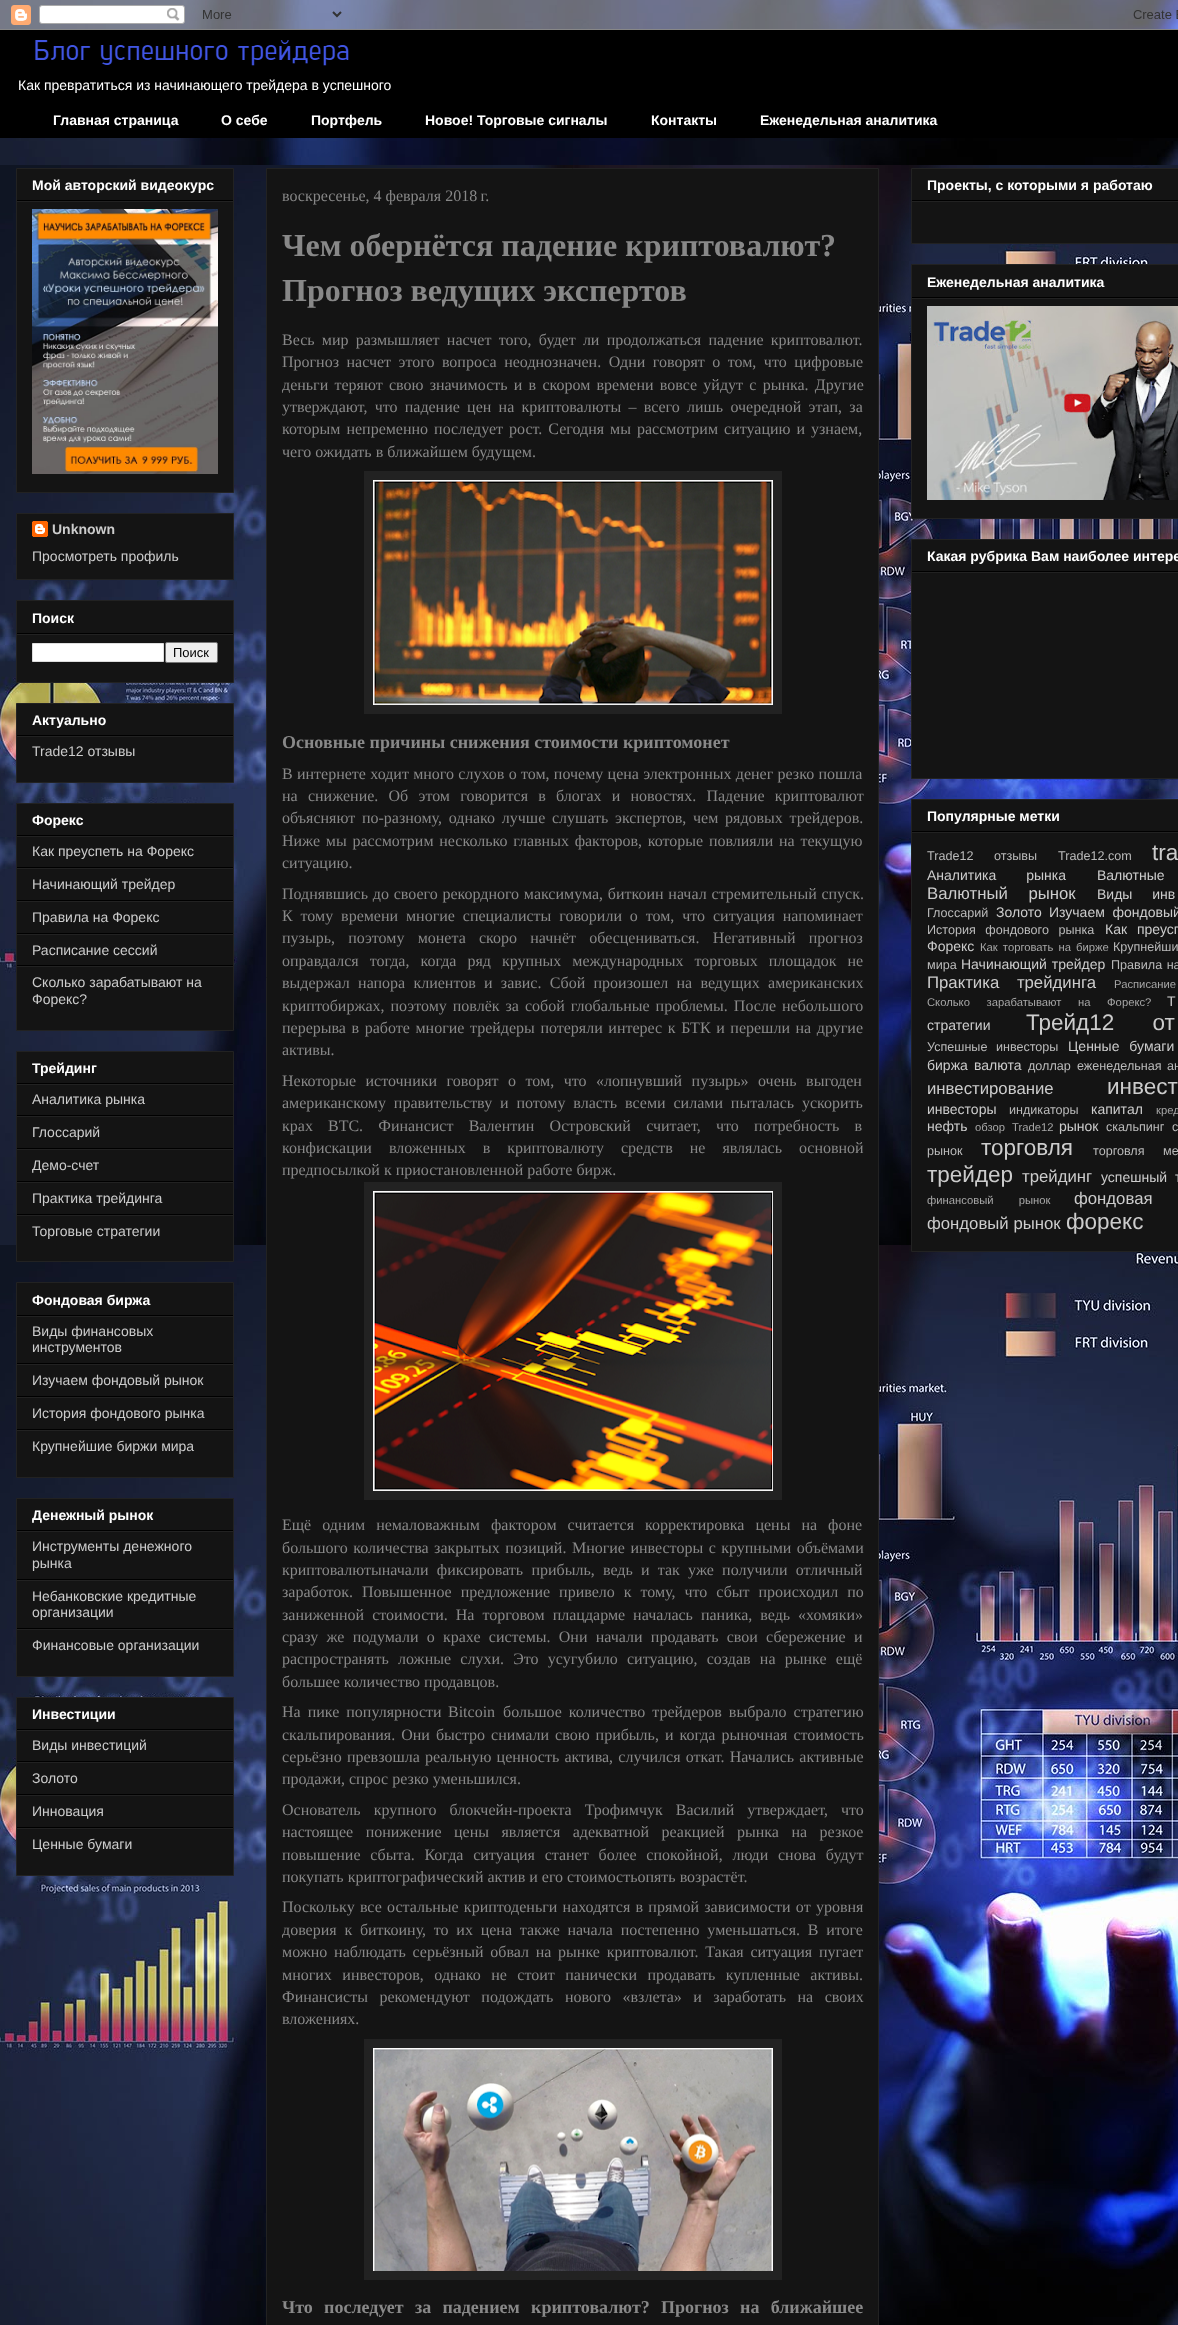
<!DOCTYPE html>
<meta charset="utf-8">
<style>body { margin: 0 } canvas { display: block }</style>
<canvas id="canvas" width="1178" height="2325"></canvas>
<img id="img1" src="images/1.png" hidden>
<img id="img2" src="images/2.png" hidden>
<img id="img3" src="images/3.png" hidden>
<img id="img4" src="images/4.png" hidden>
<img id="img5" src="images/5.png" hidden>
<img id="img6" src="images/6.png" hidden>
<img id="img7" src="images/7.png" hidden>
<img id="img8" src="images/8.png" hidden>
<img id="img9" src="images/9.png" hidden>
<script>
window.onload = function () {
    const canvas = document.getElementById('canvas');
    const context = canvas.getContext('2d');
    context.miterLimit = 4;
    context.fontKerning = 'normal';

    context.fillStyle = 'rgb(255, 255, 255)';
    context.fillRect(0, 0, 1178, 2325);
    context.drawImage(document.getElementById('img1'), 0, 0, 1178, 2325);
    context.drawImage(document.getElementById('img2'), 0, 0, 1178, 30);
    context.fillStyle = 'rgb(0, 0, 0)';
    context.fillRect(0, 30, 1178, 108);
    context.drawImage(document.getElementById('img3'), 35, 40, 314, 26);
    context.fillStyle = 'rgb(20, 20, 20)';
    context.beginPath();
    context.rect(16.5, 168.5, 217, 324);
    context.fill();
    context.strokeStyle = 'rgb(34, 34, 34)';
    context.stroke();
    context.fillStyle = 'rgb(0, 0, 0)';
    context.fillRect(17, 200, 216, 1);
    context.fillStyle = 'rgb(34, 34, 34)';
    context.fillRect(17, 201, 216, 1);
    context.drawImage(document.getElementById('img4'), 32, 209, 186, 265);
    context.fillStyle = 'rgb(20, 20, 20)';
    context.beginPath();
    context.rect(16.5, 513.5, 217, 66);
    context.fill();
    context.stroke();
    context.drawImage(document.getElementById('img5'), 32, 521, 16, 16);
    context.beginPath();
    context.rect(16.5, 600.5, 217, 82);
    context.fill();
    context.stroke();
    context.fillStyle = 'rgb(0, 0, 0)';
    context.fillRect(17, 633, 216, 1);
    context.fillStyle = 'rgb(34, 34, 34)';
    context.fillRect(17, 634, 216, 1);
    context.fillStyle = 'rgb(255, 255, 255)';
    context.beginPath();
    context.rect(32.5, 643.5, 131, 18);
    context.fill();
    context.strokeStyle = 'rgb(221, 221, 221)';
    context.stroke();
    context.fillStyle = 'rgb(239, 239, 239)';
    context.beginPath();
    context.roundRect(165.5, 642.5, 52, 20, 1.5);
    context.fill();
    context.strokeStyle = 'rgb(118, 118, 118)';
    context.stroke();
    context.fillStyle = 'rgb(20, 20, 20)';
    context.beginPath();
    context.rect(16.5, 703.5, 217, 79);
    context.fill();
    context.strokeStyle = 'rgb(34, 34, 34)';
    context.stroke();
    context.fillStyle = 'rgb(0, 0, 0)';
    context.fillRect(17, 735, 216, 1);
    context.fillStyle = 'rgb(34, 34, 34)';
    context.fillRect(17, 736, 216, 1);
    context.fillStyle = 'rgb(20, 20, 20)';
    context.beginPath();
    context.rect(16.5, 803.5, 217, 227);
    context.fill();
    context.stroke();
    context.fillStyle = 'rgb(0, 0, 0)';
    context.fillRect(17, 835, 216, 1);
    context.fillStyle = 'rgb(34, 34, 34)';
    context.fillRect(17, 836, 216, 1);
    context.fillStyle = 'rgb(0, 0, 0)';
    context.fillRect(17, 867, 216, 1);
    context.fillStyle = 'rgb(34, 34, 34)';
    context.fillRect(17, 868, 216, 1);
    context.fillStyle = 'rgb(0, 0, 0)';
    context.fillRect(17, 900, 216, 1);
    context.fillStyle = 'rgb(34, 34, 34)';
    context.fillRect(17, 901, 216, 1);
    context.fillStyle = 'rgb(0, 0, 0)';
    context.fillRect(17, 933, 216, 1);
    context.fillStyle = 'rgb(34, 34, 34)';
    context.fillRect(17, 934, 216, 1);
    context.fillStyle = 'rgb(0, 0, 0)';
    context.fillRect(17, 965, 216, 1);
    context.fillStyle = 'rgb(34, 34, 34)';
    context.fillRect(17, 966, 216, 1);
    context.fillStyle = 'rgb(20, 20, 20)';
    context.beginPath();
    context.rect(16.5, 1051.5, 217, 210);
    context.fill();
    context.stroke();
    context.fillStyle = 'rgb(0, 0, 0)';
    context.fillRect(17, 1083, 216, 1);
    context.fillStyle = 'rgb(34, 34, 34)';
    context.fillRect(17, 1084, 216, 1);
    context.fillStyle = 'rgb(0, 0, 0)';
    context.fillRect(17, 1115, 216, 1);
    context.fillStyle = 'rgb(34, 34, 34)';
    context.fillRect(17, 1116, 216, 1);
    context.fillStyle = 'rgb(0, 0, 0)';
    context.fillRect(17, 1148, 216, 1);
    context.fillStyle = 'rgb(34, 34, 34)';
    context.fillRect(17, 1149, 216, 1);
    context.fillStyle = 'rgb(0, 0, 0)';
    context.fillRect(17, 1181, 216, 1);
    context.fillStyle = 'rgb(34, 34, 34)';
    context.fillRect(17, 1182, 216, 1);
    context.fillStyle = 'rgb(0, 0, 0)';
    context.fillRect(17, 1214, 216, 1);
    context.fillStyle = 'rgb(34, 34, 34)';
    context.fillRect(17, 1215, 216, 1);
    context.fillStyle = 'rgb(20, 20, 20)';
    context.beginPath();
    context.rect(16.5, 1282.5, 217, 195);
    context.fill();
    context.stroke();
    context.fillStyle = 'rgb(0, 0, 0)';
    context.fillRect(17, 1315, 216, 1);
    context.fillStyle = 'rgb(34, 34, 34)';
    context.fillRect(17, 1316, 216, 1);
    context.fillStyle = 'rgb(0, 0, 0)';
    context.fillRect(17, 1363, 216, 1);
    context.fillStyle = 'rgb(34, 34, 34)';
    context.fillRect(17, 1364, 216, 1);
    context.fillStyle = 'rgb(0, 0, 0)';
    context.fillRect(17, 1396, 216, 1);
    context.fillStyle = 'rgb(34, 34, 34)';
    context.fillRect(17, 1397, 216, 1);
    context.fillStyle = 'rgb(0, 0, 0)';
    context.fillRect(17, 1429, 216, 1);
    context.fillStyle = 'rgb(34, 34, 34)';
    context.fillRect(17, 1430, 216, 1);
    context.fillStyle = 'rgb(20, 20, 20)';
    context.beginPath();
    context.rect(16.5, 1498.5, 217, 178);
    context.fill();
    context.stroke();
    context.fillStyle = 'rgb(0, 0, 0)';
    context.fillRect(17, 1530, 216, 1);
    context.fillStyle = 'rgb(34, 34, 34)';
    context.fillRect(17, 1531, 216, 1);
    context.fillStyle = 'rgb(0, 0, 0)';
    context.fillRect(17, 1579, 216, 1);
    context.fillStyle = 'rgb(34, 34, 34)';
    context.fillRect(17, 1580, 216, 1);
    context.fillStyle = 'rgb(0, 0, 0)';
    context.fillRect(17, 1628, 216, 1);
    context.fillStyle = 'rgb(34, 34, 34)';
    context.fillRect(17, 1629, 216, 1);
    context.fillStyle = 'rgb(20, 20, 20)';
    context.beginPath();
    context.rect(16.5, 1697.5, 217, 178);
    context.fill();
    context.stroke();
    context.fillStyle = 'rgb(0, 0, 0)';
    context.fillRect(17, 1729, 216, 1);
    context.fillStyle = 'rgb(34, 34, 34)';
    context.fillRect(17, 1730, 216, 1);
    context.fillStyle = 'rgb(0, 0, 0)';
    context.fillRect(17, 1761, 216, 1);
    context.fillStyle = 'rgb(34, 34, 34)';
    context.fillRect(17, 1762, 216, 1);
    context.fillStyle = 'rgb(0, 0, 0)';
    context.fillRect(17, 1794, 216, 1);
    context.fillStyle = 'rgb(34, 34, 34)';
    context.fillRect(17, 1795, 216, 1);
    context.fillStyle = 'rgb(0, 0, 0)';
    context.fillRect(17, 1827, 216, 1);
    context.fillStyle = 'rgb(34, 34, 34)';
    context.fillRect(17, 1828, 216, 1);
    context.fillStyle = 'rgb(20, 20, 20)';
    context.beginPath();
    context.rect(266.5, 168.5, 612, 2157);
    context.fill();
    context.stroke();
    context.fillStyle = 'rgb(34, 34, 34)';
    context.fillRect(364, 471, 418, 243);
    context.drawImage(document.getElementById('img6'), 373, 480, 400, 225);
    context.fillRect(364, 1182, 418, 318);
    context.drawImage(document.getElementById('img7'), 373, 1191, 400, 300);
    context.fillRect(364, 2039, 418, 241);
    context.drawImage(document.getElementById('img8'), 373, 2048, 400, 223);
    context.fillStyle = 'rgb(20, 20, 20)';
    context.beginPath();
    context.rect(911.5, 168.5, 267, 75);
    context.fill();
    context.stroke();
    context.fillStyle = 'rgb(0, 0, 0)';
    context.fillRect(912, 200, 266, 1);
    context.fillStyle = 'rgb(34, 34, 34)';
    context.fillRect(912, 201, 266, 1);
    context.fillStyle = 'rgb(20, 20, 20)';
    context.beginPath();
    context.rect(911.5, 264.5, 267, 254);
    context.fill();
    context.stroke();
    context.fillStyle = 'rgb(0, 0, 0)';
    context.fillRect(912, 297, 266, 1);
    context.fillStyle = 'rgb(34, 34, 34)';
    context.fillRect(912, 298, 266, 1);
    context.drawImage(document.getElementById('img9'), 927, 306, 251, 194);
    context.fillStyle = 'rgb(20, 20, 20)';
    context.beginPath();
    context.rect(911.5, 539.5, 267, 239);
    context.fill();
    context.stroke();
    context.fillStyle = 'rgb(0, 0, 0)';
    context.fillRect(912, 571, 266, 1);
    context.fillStyle = 'rgb(34, 34, 34)';
    context.fillRect(912, 572, 266, 1);
    context.fillStyle = 'rgb(20, 20, 20)';
    context.beginPath();
    context.rect(911.5, 799.5, 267, 452);
    context.fill();
    context.stroke();
    context.fillStyle = 'rgb(0, 0, 0)';
    context.fillRect(912, 831, 266, 1);
    context.fillStyle = 'rgb(34, 34, 34)';
    context.fillRect(912, 832, 266, 1);
    context.font = '14px Liberation Sans';
    context.fillStyle = 'rgb(255, 255, 255)';
    context.fillText('Как превратиться из начинающего трейдера в успешного', 18, 90);
    context.font = 'bold 14px Liberation Sans';
    context.fillText('Главная страница', 53, 125);
    context.fillText('О себе', 221, 125);
    context.fillText('Портфель', 311, 125);
    context.fillText('Новое! Торговые сигналы', 425, 125);
    context.fillText('Контакты', 651, 125);
    context.fillText('Еженедельная аналитика', 760, 125);
    context.fillText('Мой авторский видеокурс', 32, 190);
    context.fillStyle = 'rgb(204, 204, 204)';
    context.fillText('Unknown', 52, 534);
    context.font = '14px Liberation Sans';
    context.fillText('Просмотреть профиль', 32, 561);
    context.font = 'bold 14px Liberation Sans';
    context.fillStyle = 'rgb(255, 255, 255)';
    context.fillText('Поиск', 32, 623);
    context.font = '13px Liberation Sans';
    context.fillStyle = 'rgb(0, 0, 0)';
    context.fillText('Поиск', 173, 657);
    context.font = 'bold 14px Liberation Sans';
    context.fillStyle = 'rgb(255, 255, 255)';
    context.fillText('Актуально', 32, 725);
    context.font = '14px Liberation Sans';
    context.fillStyle = 'rgb(204, 204, 204)';
    context.fillText('Trade12 отзывы', 32, 756);
    context.font = 'bold 14px Liberation Sans';
    context.fillStyle = 'rgb(255, 255, 255)';
    context.fillText('Форекс', 32, 825);
    context.font = '14px Liberation Sans';
    context.fillStyle = 'rgb(204, 204, 204)';
    context.fillText('Как преуспеть на Форекс', 32, 856);
    context.fillText('Начинающий трейдер', 32, 889);
    context.fillText('Правила на Форекс', 32, 922);
    context.fillText('Расписание сессий', 32, 955);
    context.fillText('Сколько зарабатывают на', 32, 987);
    context.fillText('Форекс?', 32, 1004);
    context.font = 'bold 14px Liberation Sans';
    context.fillStyle = 'rgb(255, 255, 255)';
    context.fillText('Трейдинг', 32, 1073);
    context.font = '14px Liberation Sans';
    context.fillStyle = 'rgb(204, 204, 204)';
    context.fillText('Аналитика рынка', 32, 1104);
    context.fillText('Глоссарий', 32, 1137);
    context.fillText('Демо-счет', 32, 1170);
    context.fillText('Практика трейдинга', 32, 1203);
    context.fillText('Торговые стратегии', 32, 1236);
    context.font = 'bold 14px Liberation Sans';
    context.fillStyle = 'rgb(255, 255, 255)';
    context.fillText('Фондовая биржа', 32, 1305);
    context.font = '14px Liberation Sans';
    context.fillStyle = 'rgb(204, 204, 204)';
    context.fillText('Виды финансовых', 32, 1336);
    context.fillText('инструментов', 32, 1352);
    context.fillText('Изучаем фондовый рынок', 32, 1385);
    context.fillText('История фондового рынка', 32, 1418);
    context.fillText('Крупнейшие биржи мира', 32, 1451);
    context.font = 'bold 14px Liberation Sans';
    context.fillStyle = 'rgb(255, 255, 255)';
    context.fillText('Денежный рынок', 32, 1520);
    context.font = '14px Liberation Sans';
    context.fillStyle = 'rgb(204, 204, 204)';
    context.fillText('Инструменты денежного', 32, 1551);
    context.fillText('рынка', 32, 1568);
    context.fillText('Небанковские кредитные', 32, 1601);
    context.fillText('организации', 32, 1617);
    context.fillText('Финансовые организации', 32, 1650);
    context.font = 'bold 14px Liberation Sans';
    context.fillStyle = 'rgb(255, 255, 255)';
    context.fillText('Инвестиции', 32, 1719);
    context.font = '14px Liberation Sans';
    context.fillStyle = 'rgb(204, 204, 204)';
    context.fillText('Виды инвестиций', 32, 1750);
    context.fillText('Золото', 32, 1783);
    context.fillText('Инновация', 32, 1816);
    context.fillText('Ценные бумаги', 32, 1849);
    context.font = '16px Liberation Serif';
    context.fillStyle = 'rgb(136, 136, 136)';
    context.fillText('воскресенье, 4 февраля 2018 г.', 282, 201);
    context.font = 'bold 32px Liberation Serif';
    context.fillText('Чем обернётся падение криптовалют?', 282, 256);
    context.fillText('Прогноз ведущих экспертов', 282, 301);
    context.wordSpacing = '3.25px';
    context.font = '16px Liberation Serif';
    context.fillText('Весь мир размышляет насчет того, будет ли продолжаться падение криптовалют.', 282, 345);
    context.wordSpacing = '3.5px';
    context.fillText('Прогноз насчет этого вопроса неоднозначен. Одни говорят о том, что цифровые', 282, 367);
    context.wordSpacing = '2.25px';
    context.fillText('деньги теряют свою значимость и в скором времени вовсе уйдут с рынка. Другие', 282, 390);
    context.wordSpacing = '3.25px';
    context.fillText('утверждают, что падение цен на криптовалюты – всего лишь очередной этап, за', 282, 412);
    context.wordSpacing = '2px';
    context.fillText('которым непременно последует рост. Сегодня мы рассмотрим ситуацию и узнаем,', 282, 434);
    context.wordSpacing = '0px';
    context.fillText('чего ожидать в ближайшем будущем.', 282, 457);
    context.font = 'bold 18px Liberation Serif';
    context.fillText('Основные причины снижения стоимости криптомонет', 282, 748);
    context.wordSpacing = '0.3px';
    context.font = '16px Liberation Serif';
    context.fillText('В интернете ходит много слухов о том, почему цена электронных денег резко пошла', 282, 779);
    context.wordSpacing = '6.25px';
    context.fillText('на снижение. Об этом говорится в блогах и новостях. Падение криптовалют', 282, 801);
    context.wordSpacing = '2.75px';
    context.fillText('объясняют по-разному, однако лучше слушать экспертов, чем рядовых трейдеров.', 282, 823);
    context.wordSpacing = '1.75px';
    context.fillText('Ниже мы рассмотрим несколько главных факторов, которые повлияли на текущую', 282, 846);
    context.wordSpacing = '0px';
    context.fillText('ситуацию.', 282, 868);
    context.wordSpacing = '0.75px';
    context.fillText('Поднявшись до своего рекордного максимума, биткоин начал стремительный спуск.', 282, 899);
    context.wordSpacing = '3.9px';
    context.fillText('К тому времени многие специалисты говорили о том, что ситуация напоминает', 282, 921);
    context.wordSpacing = '9.25px';
    context.fillText('пузырь, поэтому монета скоро начнёт обесцениваться. Негативный прогноз', 282, 943);
    context.wordSpacing = '7px';
    context.fillText('оправдался тогда, когда ряд крупных международных торговых площадок не', 282, 966);
    context.wordSpacing = '4.25px';
    context.fillText('выдержал напора клиентов и завис. Сбой произошел на ведущих американских', 282, 988);
    context.wordSpacing = '2px';
    context.fillText('криптобиржах, поэтому повлёк за собой глобальные проблемы. После небольшого', 282, 1011);
    context.wordSpacing = '1.6px';
    context.fillText('перерыва в работе многие трейдеры потеряли интерес к БТК и перешли на другие', 282, 1033);
    context.wordSpacing = '0px';
    context.fillText('активы.', 282, 1055);
    context.wordSpacing = '5.5px';
    context.fillText('Некоторые источники говорят о том, что «лопнувший пузырь» очень выгоден', 282, 1086);
    context.wordSpacing = '3.9px';
    context.fillText('американскому правительству и потому власть всеми силами пыталась ускорить', 282, 1108);
    context.wordSpacing = '0px';
    context.fillText('крах', 282, 1131);
    context.fillText('BTC', 328, 1131);
    context.wordSpacing = '11.25px';
    context.fillText('. Финансист Валентин Островский считает, что потребность в', 359, 1131);
    context.wordSpacing = '13px';
    context.fillText('конфискации вложенных в криптовалюту средств не являлась основной', 282, 1153);
    context.wordSpacing = '0px';
    context.fillText('предпосылкой к приостановленной работе бирж.', 282, 1175);
    context.wordSpacing = '7px';
    context.fillText('Ещё одним немаловажным фактором считается корректировка цены на фоне', 282, 1530);
    context.wordSpacing = '1.5px';
    context.fillText('большого количества закрытых позиций. Многие инвесторы с крупными объёмами', 282, 1553);
    context.wordSpacing = '4.25px';
    context.fillText('криптовалютыначали фиксировать прибыль, ведь и так уже получили отличный', 282, 1575);
    context.wordSpacing = '5px';
    context.fillText('заработок. Повышенное предложение привело к тому, что сбыт происходил по', 282, 1597);
    context.wordSpacing = '4px';
    context.fillText('заниженной стоимости. На торговом плацдарме началась паника, ведь «хомяки»', 282, 1620);
    context.wordSpacing = '4.25px';
    context.fillText('сразу же подумали о крахе системы. Они начали продавать свои сбережение и', 282, 1642);
    context.wordSpacing = '5.25px';
    context.fillText('распространять ложные слухи. Это усугубило ситуацию, создав на рынке ещё', 282, 1664);
    context.wordSpacing = '0px';
    context.fillText('большее количество продавцов.', 282, 1687);
    context.wordSpacing = '3px';
    context.fillText('На пике популярности', 282, 1717);
    context.wordSpacing = '0px';
    context.fillText('Bitcoin', 448, 1717);
    context.wordSpacing = '3px';
    context.fillText('большое количество трейдеров выбрало стратегию', 503, 1717);
    context.wordSpacing = '2px';
    context.fillText('скальпирования. Они быстро снимали свою прибыль, и когда рыночная стоимость', 282, 1740);
    context.wordSpacing = '1.25px';
    context.fillText('серьёзно превзошла реальную ценность актива, случился откат. Начались активные', 282, 1762);
    context.wordSpacing = '0px';
    context.fillText('продажи, спрос резко уменьшился.', 282, 1784);
    context.wordSpacing = '9px';
    context.fillText('Основатель крупного блокчейн-проекта Трофимчук Василий утверждает, что', 282, 1815);
    context.wordSpacing = '8.5px';
    context.fillText('настоящее понижение цены является адекватной реакцией рынка на резкое', 282, 1837);
    context.wordSpacing = '5.75px';
    context.fillText('повышение сбыта. Когда ситуация станет более спокойной, люди снова будут', 282, 1860);
    context.wordSpacing = '0px';
    context.fillText('покупать криптографический актив и его стоимостьопять возрастёт.', 282, 1882);
    context.wordSpacing = '1.25px';
    context.fillText('Поскольку все остальные криптоденьги находятся в прямой зависимости от уровня', 282, 1912);
    context.wordSpacing = '3.75px';
    context.fillText('доверия к биткоину, то их цена также начала постепенно уменьшаться. В итоге', 282, 1935);
    context.wordSpacing = '2.75px';
    context.fillText('можно наблюдать серьёзный обвал на рынке криптовалют. Такая ситуация пугает', 282, 1957);
    context.wordSpacing = '6.5px';
    context.fillText('многих инвесторов, однако не стоит панически продавать купленные активы.', 282, 1980);
    context.wordSpacing = '7.5px';
    context.fillText('Финансисты рекомендуют подождать нового «взлета» и заработать на своих', 282, 2002);
    context.wordSpacing = '0px';
    context.fillText('вложениях.', 282, 2024);
    context.wordSpacing = '6.75px';
    context.font = 'bold 18px Liberation Serif';
    context.fillText('Что последует за падением криптовалют? Прогноз на ближайшее', 282, 2313);
    context.wordSpacing = '0px';
    context.font = 'bold 14px Liberation Sans';
    context.fillStyle = 'rgb(255, 255, 255)';
    context.fillText('Проекты, с которыми я работаю', 927, 190);
    context.fillText('Еженедельная аналитика', 927, 287);
    context.fillText('Какая рубрика Вам наиболее интере', 927, 561);
    context.fillText('Популярные метки', 927, 821);
    context.wordSpacing = '17px';
    context.font = '12.6px Liberation Sans';
    context.fillStyle = 'rgb(186, 186, 186)';
    context.fillText('Trade12 отзывы', 927, 860);
    context.wordSpacing = '0px';
    context.fillText('Trade12.com', 1058, 860);
    context.font = '22.5px Liberation Sans';
    context.fillStyle = 'rgb(204, 204, 204)';
    context.fillText('tra', 1152, 860);
    context.wordSpacing = '26px';
    context.font = '14px Liberation Sans';
    context.fillText('Аналитика рынка', 927, 880);
    context.fillText('Валютные', 1097, 880);
    context.wordSpacing = '16px';
    context.font = '16.75px Liberation Sans';
    context.fillText('Валютный рынок', 927, 899);
    context.font = '14px Liberation Sans';
    context.fillText('Виды инв', 1097, 899);
    context.wordSpacing = '0px';
    context.font = '12.6px Liberation Sans';
    context.fillStyle = 'rgb(186, 186, 186)';
    context.fillText('Глоссарий', 927, 917);
    context.font = '14px Liberation Sans';
    context.fillStyle = 'rgb(204, 204, 204)';
    context.fillText('Золото', 996, 917);
    context.wordSpacing = '3.75px';
    context.fillText('Изучаем фондовый', 1049, 917);
    context.wordSpacing = '6px';
    context.font = '12.6px Liberation Sans';
    context.fillStyle = 'rgb(186, 186, 186)';
    context.fillText('История фондового рынка', 927, 934);
    context.font = '14px Liberation Sans';
    context.fillStyle = 'rgb(204, 204, 204)';
    context.fillText('Как преусп', 1105, 934);
    context.wordSpacing = '0px';
    context.fillText('Форекс', 927, 951);
    context.wordSpacing = '2px';
    context.font = '11.25px Liberation Sans';
    context.fillStyle = 'rgb(167, 167, 167)';
    context.fillText('Как торговать на бирже', 980, 951);
    context.font = '12.6px Liberation Sans';
    context.fillStyle = 'rgb(186, 186, 186)';
    context.fillText('Крупнейши', 1113, 951);
    context.wordSpacing = '0px';
    context.fillText('мира', 927, 969);
    context.wordSpacing = '1px';
    context.font = '14px Liberation Sans';
    context.fillStyle = 'rgb(204, 204, 204)';
    context.fillText('Начинающий трейдер', 961, 969);
    context.font = '12.6px Liberation Sans';
    context.fillStyle = 'rgb(186, 186, 186)';
    context.fillText('Правила на', 1111, 969);
    context.wordSpacing = '13px';
    context.font = '16.75px Liberation Sans';
    context.fillStyle = 'rgb(204, 204, 204)';
    context.fillText('Практика трейдинга', 927, 988);
    context.font = '11.25px Liberation Sans';
    context.fillStyle = 'rgb(167, 167, 167)';
    context.fillText('Расписание', 1114, 988);
    context.wordSpacing = '13.5px';
    context.fillText('Сколько зарабатывают на Форекс?', 927, 1006);
    context.wordSpacing = '0px';
    context.font = '14px Liberation Sans';
    context.fillStyle = 'rgb(204, 204, 204)';
    context.fillText('Т', 1167, 1006);
    context.fillText('стратегии', 927, 1030);
    context.wordSpacing = '32px';
    context.font = '22.5px Liberation Sans';
    context.fillText('Трейд12 от', 1026, 1030);
    context.wordSpacing = '5px';
    context.font = '12.6px Liberation Sans';
    context.fillStyle = 'rgb(186, 186, 186)';
    context.fillText('Успешные инвесторы', 927, 1051);
    context.wordSpacing = '6px';
    context.font = '14px Liberation Sans';
    context.fillStyle = 'rgb(204, 204, 204)';
    context.fillText('Ценные бумаги', 1068, 1051);
    context.wordSpacing = '0px';
    context.fillText('биржа', 927, 1070);
    context.fillText('валюта', 974, 1070);
    context.font = '12.6px Liberation Sans';
    context.fillStyle = 'rgb(186, 186, 186)';
    context.fillText('доллар', 1028, 1070);
    context.wordSpacing = '2px';
    context.fillText('еженедельная ан', 1077, 1070);
    context.wordSpacing = '0px';
    context.font = '16.75px Liberation Sans';
    context.fillStyle = 'rgb(204, 204, 204)';
    context.fillText('инвестирование', 927, 1094);
    context.font = '22.5px Liberation Sans';
    context.fillText('инвест', 1107, 1094);
    context.font = '14px Liberation Sans';
    context.fillText('инвесторы', 927, 1114);
    context.font = '12.6px Liberation Sans';
    context.fillStyle = 'rgb(186, 186, 186)';
    context.fillText('индикаторы', 1009, 1114);
    context.font = '14px Liberation Sans';
    context.fillStyle = 'rgb(204, 204, 204)';
    context.fillText('капитал', 1091, 1114);
    context.font = '11.25px Liberation Sans';
    context.fillStyle = 'rgb(167, 167, 167)';
    context.fillText('кред', 1156, 1114);
    context.font = '14px Liberation Sans';
    context.fillStyle = 'rgb(204, 204, 204)';
    context.fillText('нефть', 927, 1131);
    context.wordSpacing = '4px';
    context.font = '11.25px Liberation Sans';
    context.fillStyle = 'rgb(167, 167, 167)';
    context.fillText('обзор Trade12', 975, 1131);
    context.wordSpacing = '0px';
    context.font = '14px Liberation Sans';
    context.fillStyle = 'rgb(204, 204, 204)';
    context.fillText('рынок', 1059, 1131);
    context.font = '12.6px Liberation Sans';
    context.fillStyle = 'rgb(186, 186, 186)';
    context.fillText('скальпинг', 1106, 1131);
    context.fillText('с', 1172, 1131);
    context.fillText('рынок', 927, 1155);
    context.font = '22.5px Liberation Sans';
    context.fillStyle = 'rgb(204, 204, 204)';
    context.fillText('торговля', 981, 1155);
    context.wordSpacing = '15px';
    context.font = '12.6px Liberation Sans';
    context.fillStyle = 'rgb(186, 186, 186)';
    context.fillText('торговля ме', 1093, 1155);
    context.wordSpacing = '0px';
    context.font = '22.5px Liberation Sans';
    context.fillStyle = 'rgb(204, 204, 204)';
    context.fillText('трейдер', 927, 1182);
    context.font = '16.75px Liberation Sans';
    context.fillText('трейдинг', 1022, 1182);
    context.wordSpacing = '4px';
    context.font = '14px Liberation Sans';
    context.fillText('успешный т', 1101, 1182);
    context.wordSpacing = '22px';
    context.font = '11.25px Liberation Sans';
    context.fillStyle = 'rgb(167, 167, 167)';
    context.fillText('финансовый рынок', 927, 1204);
    context.font = '16.75px Liberation Sans';
    context.fillStyle = 'rgb(204, 204, 204)';
    context.fillText('фондовая', 1074, 1204);
    context.wordSpacing = '0px';
    context.fillText('фондовый рынок', 927, 1229);
    context.font = '22.5px Liberation Sans';
    context.fillText('форекс', 1066, 1229);
};
</script>
